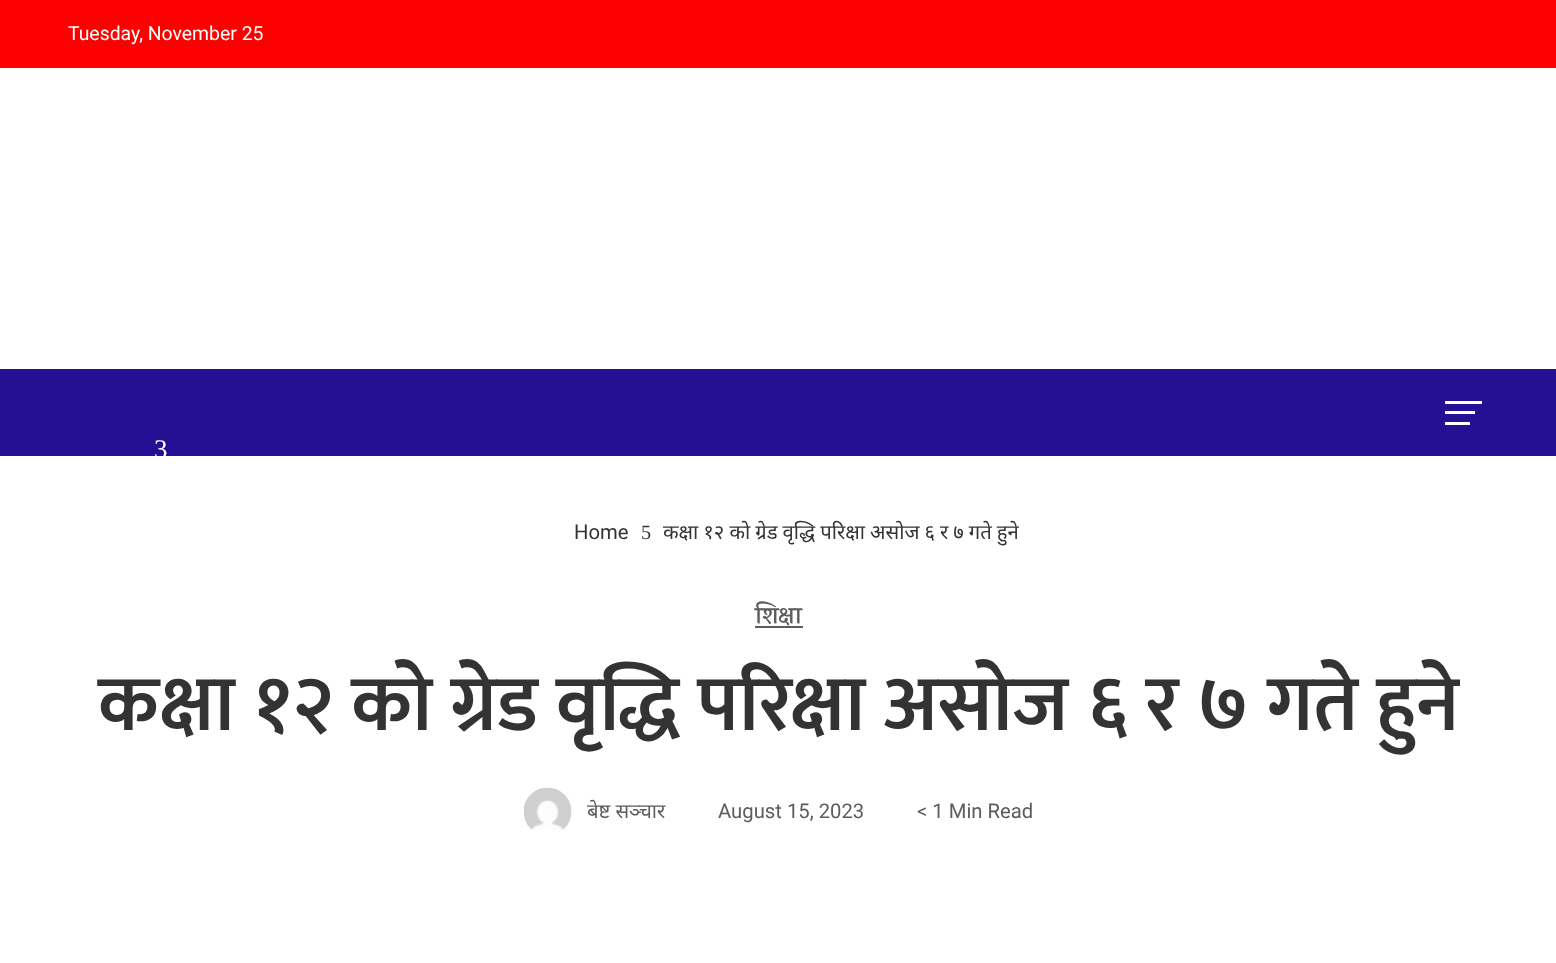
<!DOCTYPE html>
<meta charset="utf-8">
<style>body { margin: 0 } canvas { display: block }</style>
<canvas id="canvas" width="1556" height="963"></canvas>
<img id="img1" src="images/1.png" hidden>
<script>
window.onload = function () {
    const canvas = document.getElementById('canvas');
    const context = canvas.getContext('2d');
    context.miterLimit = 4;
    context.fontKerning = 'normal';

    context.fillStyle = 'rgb(255, 255, 255)';
    context.fillRect(0, 0, 1556, 963);
    context.fillStyle = 'rgb(255, 0, 0)';
    context.fillRect(0, 0, 1556, 68);
    context.fillStyle = 'rgb(37, 16, 147)';
    context.fillRect(0, 369, 1556, 87);
    context.fillStyle = 'rgb(255, 255, 255)';
    context.fillRect(1445, 401, 37, 3);
    context.fillRect(1445, 411, 30, 3);
    context.fillRect(1445, 422, 25, 3);
    context.fillStyle = 'rgb(92, 92, 92)';
    context.fillRect(755, 626, 48, 2);
    context.drawImage(document.getElementById('img1'), 523, 787, 49, 44);
    context.font = '19.4px Roboto';
    context.fillStyle = 'rgb(255, 255, 255)';
    context.fillText('Tuesday, November 25', 68, 40);
    context.letterSpacing = '-1px';
    context.font = '27px Liberation Serif';
    context.fillText('3', 154, 458);
    context.letterSpacing = '0px';
    context.font = '20.25px Roboto';
    context.fillStyle = 'rgb(51, 51, 51)';
    context.fillText('Home', 574, 539);
    context.font = '20.25px Liberation Serif';
    context.fillText('5', 641, 539);
    context.wordSpacing = '-0.25px';
    context.font = '20.25px Noto Sans';
    context.fillText('कक्षा १२ को ग्रेड वृद्धि परिक्षा असोज ६ र ७ गते हुने', 663, 539);
    context.wordSpacing = '0px';
    context.font = '600 24px Karma';
    context.fillStyle = 'rgb(92, 92, 92)';
    context.fillText('शिक्षा', 755, 623);
    context.font = '600 79.5px Mukta';
    context.fillStyle = 'rgb(51, 51, 51)';
    context.fillText('कक्षा १२ को ग्रेड वृद्धि परिक्षा असोज ६ र ७ गते हुने', 98, 730);
    context.wordSpacing = '-0.25px';
    context.font = '20.25px Noto Sans';
    context.fillStyle = 'rgb(92, 92, 92)';
    context.fillText('बेष्ट सञ्चार', 587, 818);
    context.wordSpacing = '0px';
    context.font = '20.25px Roboto';
    context.fillText('August 15, 2023', 718, 818);
    context.fillText('< 1 Min Read', 917, 818);
};
</script>
